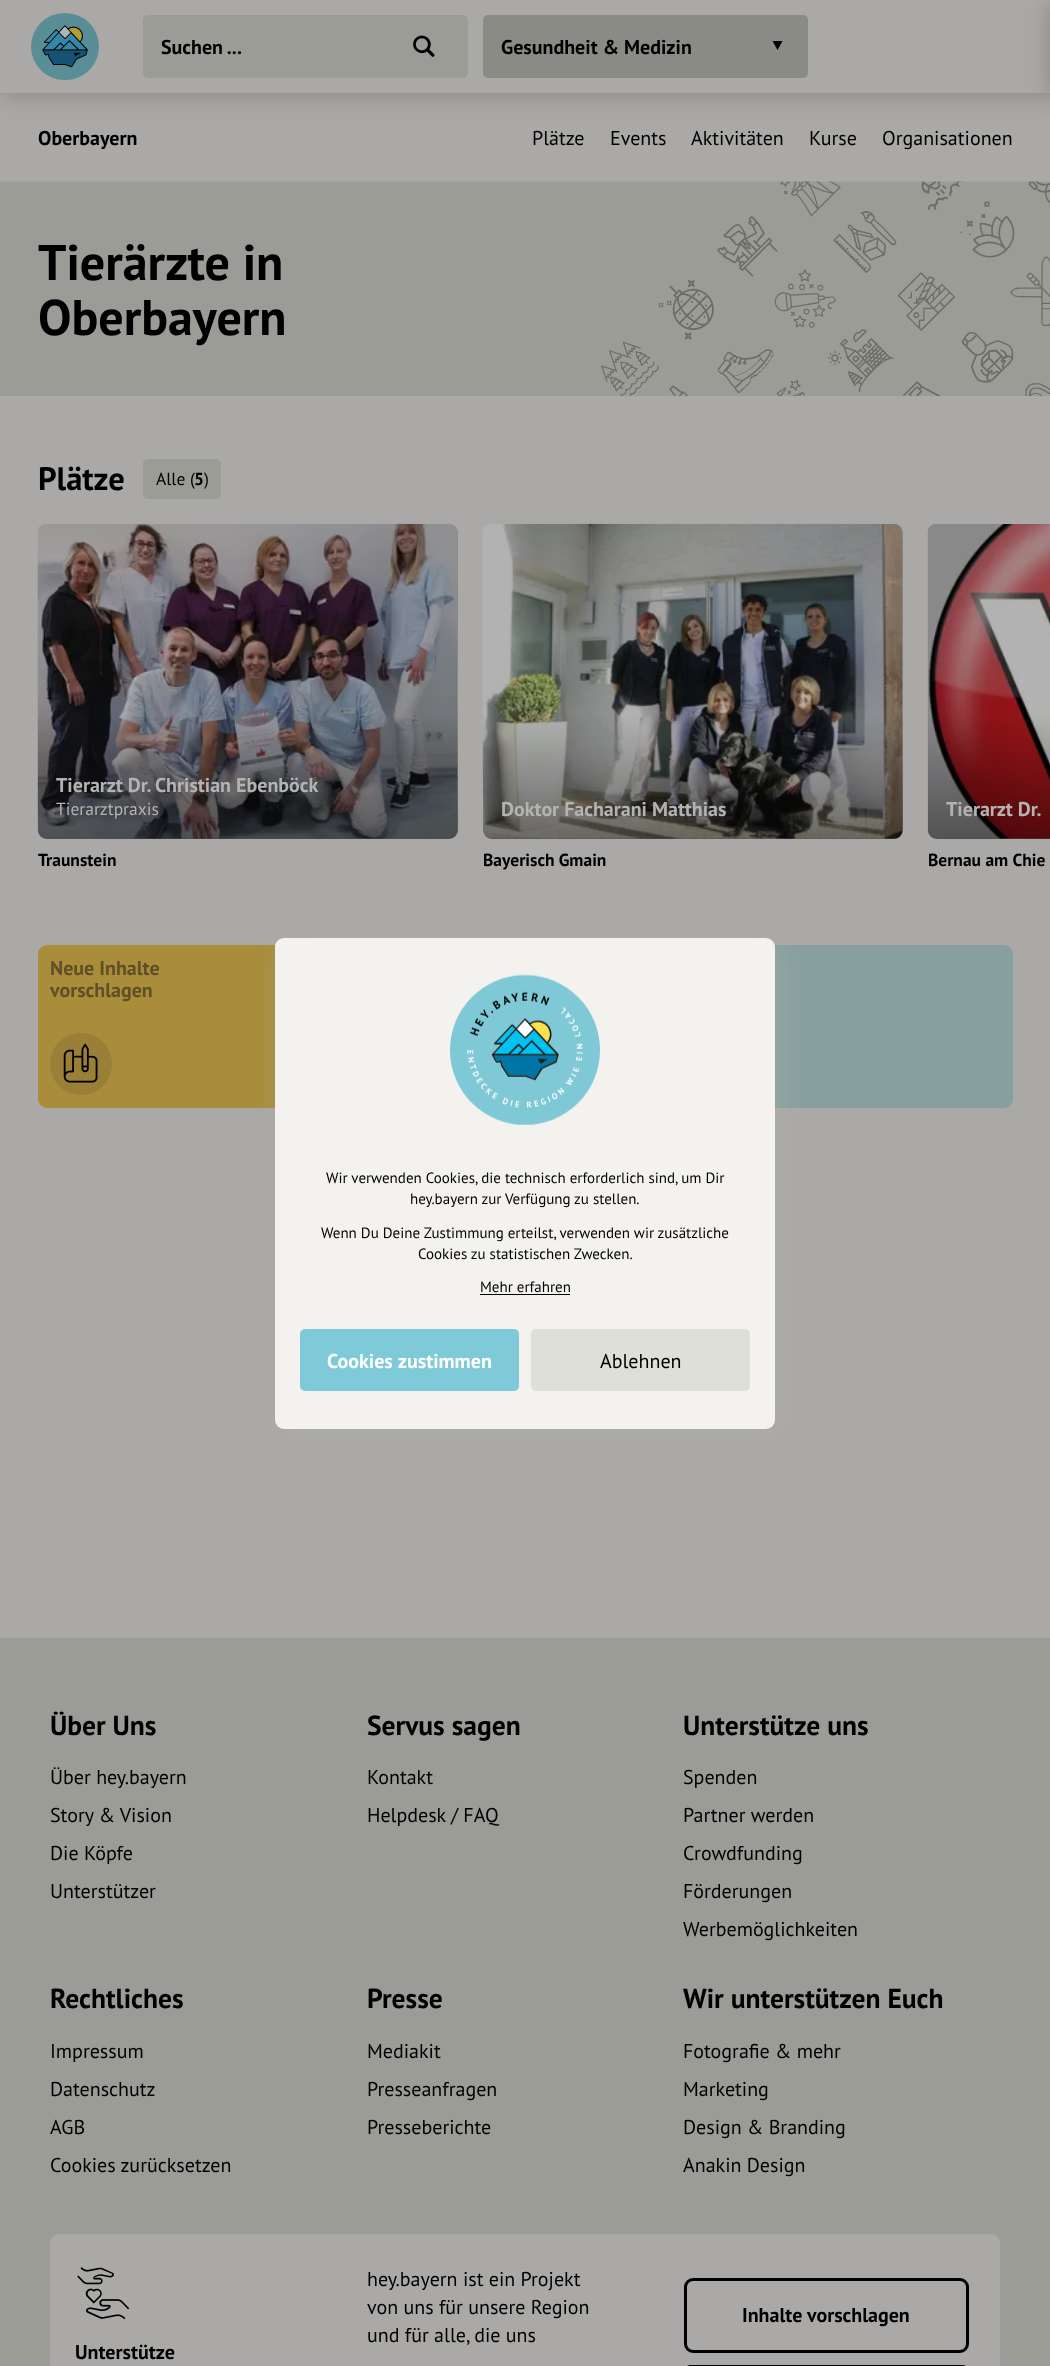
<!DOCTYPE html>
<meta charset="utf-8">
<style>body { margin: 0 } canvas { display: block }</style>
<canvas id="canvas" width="1050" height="2366"></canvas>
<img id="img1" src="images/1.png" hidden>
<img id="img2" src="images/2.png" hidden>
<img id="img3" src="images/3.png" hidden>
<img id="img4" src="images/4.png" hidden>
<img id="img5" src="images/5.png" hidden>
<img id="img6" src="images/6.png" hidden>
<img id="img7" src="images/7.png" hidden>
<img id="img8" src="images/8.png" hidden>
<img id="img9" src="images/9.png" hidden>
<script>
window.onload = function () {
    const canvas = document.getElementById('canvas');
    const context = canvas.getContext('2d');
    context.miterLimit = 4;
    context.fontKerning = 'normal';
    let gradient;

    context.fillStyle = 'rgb(170, 169, 167)';
    context.fillRect(0, 0, 1050, 2366);
    context.fillStyle = 'rgba(0, 0, 0, 0.2)';
    context.filter = 'blur(12.5px)';
    context.beginPath();
    context.rect(0, 3, 1050, 92);
    context.fill();
    context.filter = 'none';
    context.fillStyle = 'rgb(170, 169, 167)';
    context.fillRect(0, 0, 1050, 93);
    context.fillStyle = 'rgba(0, 0, 0, 0.2)';
    context.filter = 'blur(12.5px)';
    context.beginPath();
    context.rect(1050, 3, 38, 92);
    context.fill();
    context.filter = 'none';
    context.fillStyle = 'rgb(138, 139, 132)';
    context.beginPath();
    context.roundRect(483, 15, 325, 63, 5);
    context.fill();
    context.fillStyle = 'rgb(0, 0, 0)';
    context.beginPath();
    context.moveTo(772.5, 41);
    context.lineTo(782.5, 41);
    context.lineTo(777.5, 50);
    context.closePath();
    context.fill();
    context.drawImage(document.getElementById('img1'), 0, 181, 1050, 215);
    context.fillStyle = 'rgb(155, 156, 150)';
    context.beginPath();
    context.roundRect(143, 459, 78, 40, 5);
    context.fill();
    context.fillStyle = 'rgb(138, 139, 132)';
    context.beginPath();
    context.roundRect(38, 524, 420, 315, 9);
    context.fill();
    context.drawImage(document.getElementById('img2'), 37, 523, 421, 316);
    gradient = context.createLinearGradient(247, 524, 248, 839);
    gradient.addColorStop(0.6, 'rgba(0, 0, 0, 0)');
    gradient.addColorStop(1, 'rgba(0, 0, 0, 0.4)');
    context.fillStyle = gradient;
    context.beginPath();
    context.roundRect(38, 524, 420, 315, 9);
    context.fill();
    context.fillStyle = 'rgb(138, 139, 132)';
    context.beginPath();
    context.roundRect(483, 524, 420, 315, 9);
    context.fill();
    context.drawImage(document.getElementById('img3'), 482, 523, 421, 316);
    gradient = context.createLinearGradient(693, 524, 693, 839);
    gradient.addColorStop(0.6, 'rgba(0, 0, 0, 0)');
    gradient.addColorStop(1, 'rgba(0, 0, 0, 0.4)');
    context.fillStyle = gradient;
    context.beginPath();
    context.roundRect(483, 524, 420, 315, 9);
    context.fill();
    context.fillStyle = 'rgb(138, 139, 132)';
    context.beginPath();
    context.roundRect(928, 524, 122, 315, [9, 0, 0, 9]);
    context.fill();
    context.drawImage(document.getElementById('img4'), 927, 524, 123, 315);
    gradient = context.createLinearGradient(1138, 524, 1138, 839);
    gradient.addColorStop(0.6, 'rgba(0, 0, 0, 0)');
    gradient.addColorStop(1, 'rgba(0, 0, 0, 0.4)');
    context.fillStyle = gradient;
    context.beginPath();
    context.roundRect(928, 524, 122, 315, [9, 0, 0, 9]);
    context.fill();
    context.fillStyle = 'rgb(169, 141, 59)';
    context.beginPath();
    context.roundRect(38, 945, 475, 163, 9);
    context.fill();
    context.drawImage(document.getElementById('img5'), 50, 1033, 62, 62);
    context.fillStyle = 'rgb(135, 160, 158)';
    context.beginPath();
    context.roundRect(538, 945, 475, 163, 9);
    context.fill();
    context.fillStyle = 'rgb(90, 142, 151)';
    context.beginPath();
    context.roundRect(31, 13, 68, 67, 33.5);
    context.fill();
    context.drawImage(document.getElementById('img6'), 42, 25, 46, 43);
    context.fillStyle = 'rgb(155, 156, 150)';
    context.beginPath();
    context.roundRect(143, 15, 325, 63, 5);
    context.fill();
    context.drawImage(document.getElementById('img7'), 413, 35, 22, 22);
    context.fillStyle = 'rgba(177, 177, 177, 0.4)';
    context.filter = 'blur(13px)';
    context.beginPath();
    context.roundRect(281, 943, 500, 491, 9);
    context.fill();
    context.filter = 'none';
    context.fillStyle = 'rgb(243, 242, 238)';
    context.beginPath();
    context.roundRect(275, 938, 500, 491, 9);
    context.fill();
    context.drawImage(document.getElementById('img8'), 450, 974, 150, 151);
    context.fillStyle = 'rgb(0, 0, 0)';
    context.fillRect(480, 1294, 90, 1);
    context.fillStyle = 'rgb(127, 202, 216)';
    context.beginPath();
    context.roundRect(300, 1329, 219, 62, 5);
    context.fill();
    context.fillStyle = 'rgb(222, 223, 214)';
    context.beginPath();
    context.roundRect(531, 1329, 219, 62, 5);
    context.fill();
    context.fillStyle = 'rgb(155, 156, 150)';
    context.fillRect(0, 1638, 1050, 728);
    context.fillStyle = 'rgb(170, 169, 167)';
    context.beginPath();
    context.roundRect(50, 2234, 950, 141, 9);
    context.fill();
    context.beginPath();
    context.roundRect(685.5, 2279.5, 282, 72, 7.5);
    context.strokeStyle = 'rgb(0, 0, 0)';
    context.lineWidth = 3;
    context.stroke();
    context.beginPath();
    context.roundRect(685.5, 2366.5, 282, 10, 7.5);
    context.stroke();
    context.drawImage(document.getElementById('img9'), 77, 2267, 52, 52);
    context.font = 'bold 20px PT Sans';
    context.fillStyle = 'rgb(0, 0, 0)';
    context.fillText('Gesundheit & Medizin', 501, 54);
    context.fillText('Oberbayern', 38, 145);
    context.font = '20px PT Sans';
    context.fillText('Plätze', 532, 145);
    context.fillText('Events', 610, 145);
    context.fillText('Aktivitäten', 691, 145);
    context.fillText('Kurse', 809, 145);
    context.fillText('Organisationen', 882, 145);
    context.font = 'bold 50px PT Sans';
    context.fillText('Tierärzte in', 38, 280);
    context.fillText('Oberbayern', 38, 335);
    context.font = 'bold 32.5px PT Sans';
    context.fillText('Plätze', 38, 490);
    context.font = '17.5px PT Sans';
    context.fillText('Alle (', 156, 485);
    context.font = 'bold 17.5px PT Sans';
    context.fillText('5', 194, 485);
    context.font = '17.5px PT Sans';
    context.fillText(')', 204, 485);
    context.font = 'bold 20px PT Sans';
    context.fillStyle = 'rgb(179, 179, 179)';
    context.fillText('Tierarzt Dr. Christian Ebenböck', 56, 792);
    context.font = '17.5px PT Sans';
    context.fillText('Tierarztpraxis', 56, 815);
    context.font = 'bold 17.5px PT Sans';
    context.fillStyle = 'rgb(0, 0, 0)';
    context.fillText('Traunstein', 38, 866);
    context.font = 'bold 20px PT Sans';
    context.fillStyle = 'rgb(179, 179, 179)';
    context.fillText('Doktor Facharani Matthias', 501, 816);
    context.font = 'bold 17.5px PT Sans';
    context.fillStyle = 'rgb(0, 0, 0)';
    context.fillText('Bayerisch Gmain', 483, 866);
    context.font = 'bold 20px PT Sans';
    context.fillStyle = 'rgb(179, 179, 179)';
    context.fillText('Tierarzt Dr.', 946, 816);
    context.font = 'bold 17.5px PT Sans';
    context.fillStyle = 'rgb(0, 0, 0)';
    context.fillText('Bernau am Chie', 928, 866);
    context.font = 'bold 20px PT Sans';
    context.fillStyle = 'rgb(94, 80, 39)';
    context.fillText('Neue Inhalte', 50, 975);
    context.fillText('vorschlagen', 50, 997);
    context.fillStyle = 'rgb(0, 0, 0)';
    context.fillText('Suchen ...', 161, 54);
    context.font = '15px PT Sans';
    context.fillText('Wir verwenden Cookies, die technisch erforderlich sind, um Dir', 326, 1183);
    context.fillText('hey.bayern zur Verfügung zu stellen.', 410, 1204);
    context.fillText('Wenn Du Deine Zustimmung erteilst, verwenden wir zusätzliche', 321, 1238);
    context.fillText('Cookies zu statistischen Zwecken.', 418, 1259);
    context.fillText('Mehr erfahren', 480, 1292);
    context.font = 'bold 20px PT Sans';
    context.fillStyle = 'rgb(255, 255, 255)';
    context.fillText('Cookies zustimmen', 327, 1368);
    context.font = '20px PT Sans';
    context.fillStyle = 'rgb(0, 0, 0)';
    context.fillText('Ablehnen', 600, 1368);
    context.font = 'bold 27.5px PT Sans';
    context.fillText('Über Uns', 50, 1735);
    context.font = '20px PT Sans';
    context.fillText('Über hey.bayern', 50, 1784);
    context.fillText('Story & Vision', 50, 1822);
    context.fillText('Die Köpfe', 50, 1860);
    context.fillText('Unterstützer', 50, 1898);
    context.font = 'bold 27.5px PT Sans';
    context.fillText('Servus sagen', 367, 1735);
    context.font = '20px PT Sans';
    context.fillText('Kontakt', 367, 1784);
    context.fillText('Helpdesk / FAQ', 367, 1822);
    context.font = 'bold 27.5px PT Sans';
    context.fillText('Unterstütze uns', 683, 1735);
    context.font = '20px PT Sans';
    context.fillText('Spenden', 683, 1784);
    context.fillText('Partner werden', 683, 1822);
    context.fillText('Crowdfunding', 683, 1860);
    context.fillText('Förderungen', 683, 1898);
    context.fillText('Werbemöglichkeiten', 683, 1936);
    context.font = 'bold 27.5px PT Sans';
    context.fillText('Rechtliches', 50, 2008);
    context.font = '20px PT Sans';
    context.fillText('Impressum', 50, 2058);
    context.fillText('Datenschutz', 50, 2096);
    context.fillText('AGB', 50, 2134);
    context.fillText('Cookies zurücksetzen', 50, 2172);
    context.font = 'bold 27.5px PT Sans';
    context.fillText('Presse', 367, 2008);
    context.font = '20px PT Sans';
    context.fillText('Mediakit', 367, 2058);
    context.fillText('Presseanfragen', 367, 2096);
    context.fillText('Presseberichte', 367, 2134);
    context.font = 'bold 27.5px PT Sans';
    context.fillText('Wir unterstützen Euch', 683, 2008);
    context.font = '20px PT Sans';
    context.fillText('Fotografie & mehr', 683, 2058);
    context.fillText('Marketing', 683, 2096);
    context.fillText('Design & Branding', 683, 2134);
    context.fillText('Anakin Design', 683, 2172);
    context.fillText('hey.bayern ist ein Projekt', 367, 2286);
    context.fillText('von uns für unsere Region', 367, 2314);
    context.fillText('und für alle, die uns', 367, 2342);
    context.font = 'bold 20px PT Sans';
    context.fillText('Inhalte vorschlagen', 742, 2322);
    context.fillText('Unterstütze', 75, 2359);
};
</script>
